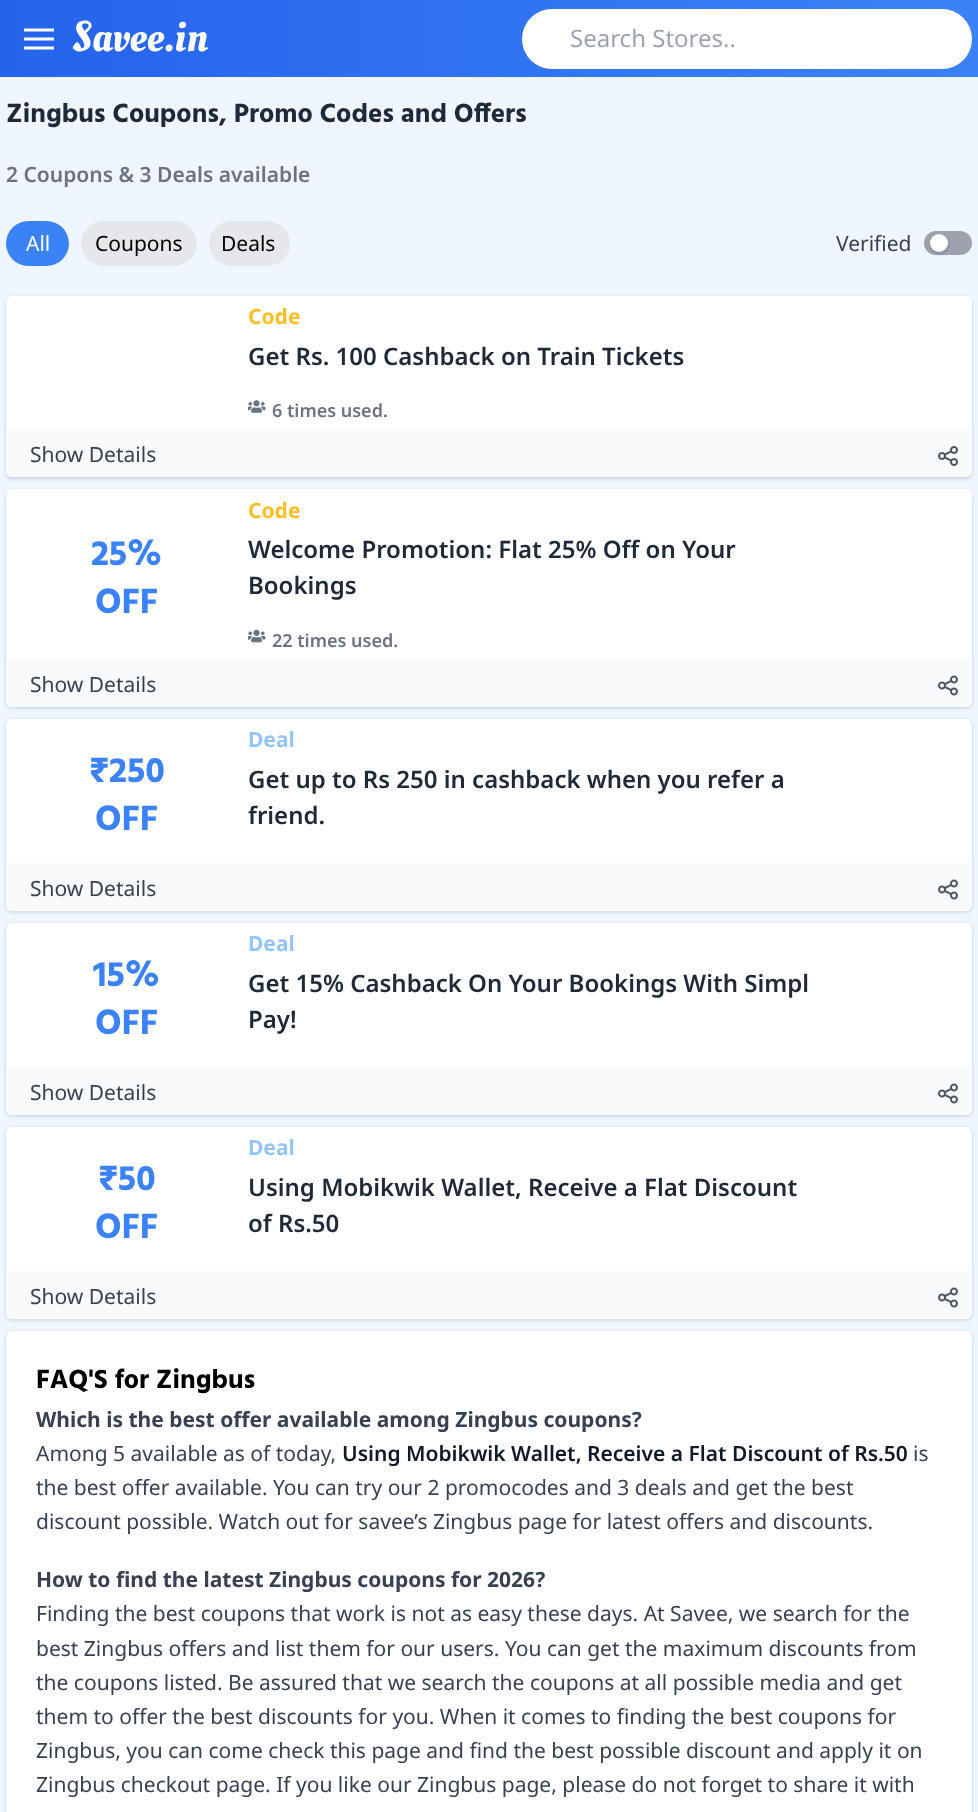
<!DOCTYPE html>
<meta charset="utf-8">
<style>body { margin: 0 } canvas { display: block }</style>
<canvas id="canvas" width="978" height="1812"></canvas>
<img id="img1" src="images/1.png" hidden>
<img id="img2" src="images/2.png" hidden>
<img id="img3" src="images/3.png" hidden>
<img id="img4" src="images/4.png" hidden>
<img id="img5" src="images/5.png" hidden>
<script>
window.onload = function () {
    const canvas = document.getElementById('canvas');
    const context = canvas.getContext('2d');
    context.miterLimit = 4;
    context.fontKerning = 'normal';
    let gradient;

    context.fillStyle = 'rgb(239, 246, 255)';
    context.fillRect(0, 0, 978, 1812);
    gradient = context.createLinearGradient(0, 38, 978, 38);
    gradient.addColorStop(0, 'rgb(37, 99, 235)');
    gradient.addColorStop(1, 'rgb(59, 130, 246)');
    context.fillStyle = gradient;
    context.fillRect(0, 0, 978, 77);
    context.drawImage(document.getElementById('img1'), 24, 28, 30, 22);
    context.fillStyle = 'rgb(255, 255, 255)';
    context.beginPath();
    context.roundRect(522, 9, 450, 60, 30);
    context.fill();
    context.fillStyle = 'rgb(59, 130, 246)';
    context.beginPath();
    context.roundRect(6, 221, 63, 45, 22.5);
    context.fill();
    context.fillStyle = 'rgb(229, 231, 235)';
    context.beginPath();
    context.roundRect(81, 221, 116, 45, 22.5);
    context.fill();
    context.beginPath();
    context.roundRect(209, 221, 81, 45, 22.5);
    context.fill();
    context.fillStyle = 'rgb(156, 163, 175)';
    context.beginPath();
    context.roundRect(924, 231, 48, 24, 12);
    context.fill();
    context.fillStyle = 'rgba(0, 0, 0, 0.06)';
    context.filter = 'blur(1.5px)';
    context.beginPath();
    context.roundRect(930, 236, 18, 18, 9);
    context.fill();
    context.filter = 'none';
    context.fillStyle = 'rgba(0, 0, 0, 0.1)';
    context.filter = 'blur(2px)';
    context.beginPath();
    context.roundRect(930, 236, 18, 18, 9);
    context.fill();
    context.filter = 'none';
    context.fillStyle = 'rgb(255, 255, 255)';
    context.beginPath();
    context.arc(939, 243, 9, 0, 2 * Math.PI);
    context.fill();
    context.fillStyle = 'rgba(0, 0, 0, 0.06)';
    context.filter = 'blur(1.5px)';
    context.beginPath();
    context.roundRect(6, 297, 966, 182, 6);
    context.fill();
    context.filter = 'none';
    context.fillStyle = 'rgba(0, 0, 0, 0.1)';
    context.filter = 'blur(2px)';
    context.beginPath();
    context.roundRect(6, 297, 966, 182, 6);
    context.fill();
    context.filter = 'none';
    context.fillStyle = 'rgb(255, 255, 255)';
    context.beginPath();
    context.roundRect(6, 296, 966, 181, 6);
    context.fill();
    context.drawImage(document.getElementById('img2'), 248, 400, 18, 13);
    context.fillStyle = 'rgb(249, 250, 251)';
    context.beginPath();
    context.roundRect(6, 429, 966, 48, [0, 0, 6, 6]);
    context.fill();
    context.drawImage(document.getElementById('img3'), 938, 446, 20, 20);
    context.fillStyle = 'rgba(0, 0, 0, 0.06)';
    context.filter = 'blur(1.5px)';
    context.beginPath();
    context.roundRect(6, 491, 966, 217, 6);
    context.fill();
    context.filter = 'none';
    context.fillStyle = 'rgba(0, 0, 0, 0.1)';
    context.filter = 'blur(2px)';
    context.beginPath();
    context.roundRect(6, 491, 966, 217, 6);
    context.fill();
    context.filter = 'none';
    context.fillStyle = 'rgb(255, 255, 255)';
    context.beginPath();
    context.roundRect(6, 489, 966, 218, 6);
    context.fill();
    context.drawImage(document.getElementById('img4'), 248, 629, 18, 14);
    context.fillStyle = 'rgb(249, 250, 251)';
    context.beginPath();
    context.roundRect(6, 659, 966, 48, [0, 0, 6, 6]);
    context.fill();
    context.drawImage(document.getElementById('img5'), 938, 675, 20, 21);
    context.fillStyle = 'rgba(0, 0, 0, 0.06)';
    context.filter = 'blur(1.5px)';
    context.beginPath();
    context.roundRect(6, 720, 966, 192, 6);
    context.fill();
    context.filter = 'none';
    context.fillStyle = 'rgba(0, 0, 0, 0.1)';
    context.filter = 'blur(2px)';
    context.beginPath();
    context.roundRect(6, 720, 966, 192, 6);
    context.fill();
    context.filter = 'none';
    context.fillStyle = 'rgb(255, 255, 255)';
    context.beginPath();
    context.roundRect(6, 719, 966, 192, 6);
    context.fill();
    context.fillStyle = 'rgb(249, 250, 251)';
    context.beginPath();
    context.roundRect(6, 863, 966, 48, [0, 0, 6, 6]);
    context.fill();
    context.drawImage(document.getElementById('img5'), 938, 879, 20, 21);
    context.fillStyle = 'rgba(0, 0, 0, 0.06)';
    context.filter = 'blur(1.5px)';
    context.beginPath();
    context.roundRect(6, 924, 966, 192, 6);
    context.fill();
    context.filter = 'none';
    context.fillStyle = 'rgba(0, 0, 0, 0.1)';
    context.filter = 'blur(2px)';
    context.beginPath();
    context.roundRect(6, 924, 966, 192, 6);
    context.fill();
    context.filter = 'none';
    context.fillStyle = 'rgb(255, 255, 255)';
    context.beginPath();
    context.roundRect(6, 923, 966, 192, 6);
    context.fill();
    context.fillStyle = 'rgb(249, 250, 251)';
    context.beginPath();
    context.roundRect(6, 1067, 966, 48, [0, 0, 6, 6]);
    context.fill();
    context.drawImage(document.getElementById('img5'), 938, 1083, 20, 21);
    context.fillStyle = 'rgba(0, 0, 0, 0.06)';
    context.filter = 'blur(1.5px)';
    context.beginPath();
    context.roundRect(6, 1128, 966, 192, 6);
    context.fill();
    context.filter = 'none';
    context.fillStyle = 'rgba(0, 0, 0, 0.1)';
    context.filter = 'blur(2px)';
    context.beginPath();
    context.roundRect(6, 1128, 966, 192, 6);
    context.fill();
    context.filter = 'none';
    context.fillStyle = 'rgb(255, 255, 255)';
    context.beginPath();
    context.roundRect(6, 1127, 966, 192, 6);
    context.fill();
    context.fillStyle = 'rgb(249, 250, 251)';
    context.beginPath();
    context.roundRect(6, 1271, 966, 48, [0, 0, 6, 6]);
    context.fill();
    context.drawImage(document.getElementById('img5'), 938, 1287, 20, 21);
    context.fillStyle = 'rgba(0, 0, 0, 0.06)';
    context.filter = 'blur(1.5px)';
    context.beginPath();
    context.roundRect(6, 1332, 966, 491, 6);
    context.fill();
    context.filter = 'none';
    context.fillStyle = 'rgba(0, 0, 0, 0.1)';
    context.filter = 'blur(2px)';
    context.beginPath();
    context.roundRect(6, 1332, 966, 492, 6);
    context.fill();
    context.filter = 'none';
    context.fillStyle = 'rgb(255, 255, 255)';
    context.beginPath();
    context.roundRect(6, 1331, 966, 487, 6);
    context.fill();
    context.font = '43px Oleo Script';
    context.fillText('Savee.in', 72, 51);
    context.font = '24px Noto Sans';
    context.fillStyle = 'rgb(156, 163, 175)';
    context.fillText('Search Stores..', 570, 47);
    context.font = 'bold 27px Hind';
    context.fillStyle = 'rgb(31, 41, 55)';
    context.fillText('Zingbus Coupons, Promo Codes and Offers', 6, 122);
    context.font = '600 21px Noto Sans';
    context.fillStyle = 'rgb(107, 114, 128)';
    context.fillText('2 Coupons & 3 Deals available', 6, 182);
    context.font = '21px Noto Sans';
    context.fillStyle = 'rgb(255, 255, 255)';
    context.fillText('All', 26, 251);
    context.fillStyle = 'rgb(0, 0, 0)';
    context.fillText('Coupons', 95, 251);
    context.fillText('Deals', 221, 251);
    context.fillStyle = 'rgb(55, 65, 81)';
    context.fillText('Verified', 836, 251);
    context.font = 'bold 21px Noto Sans';
    context.fillStyle = 'rgb(251, 191, 36)';
    context.fillText('Code', 248, 324);
    context.font = '600 24px Noto Sans';
    context.fillStyle = 'rgb(31, 41, 55)';
    context.fillText('Get Rs. 100 Cashback on Train Tickets', 248, 365);
    context.font = '600 18px Noto Sans';
    context.fillStyle = 'rgb(107, 114, 128)';
    context.fillText('6 times used.', 272, 417);
    context.font = '21px Noto Sans';
    context.fillStyle = 'rgb(55, 65, 81)';
    context.fillText('Show Details', 30, 462);
    context.font = 'bold 36px Hind';
    context.fillStyle = 'rgb(59, 130, 246)';
    context.fillText('25%', 91, 565);
    context.fillText('OFF', 95, 613);
    context.font = 'bold 21px Noto Sans';
    context.fillStyle = 'rgb(251, 191, 36)';
    context.fillText('Code', 248, 518);
    context.font = '600 24px Noto Sans';
    context.fillStyle = 'rgb(31, 41, 55)';
    context.fillText('Welcome Promotion: Flat 25% Off on Your', 248, 558);
    context.fillText('Bookings', 248, 594);
    context.font = '600 18px Noto Sans';
    context.fillStyle = 'rgb(107, 114, 128)';
    context.fillText('22 times used.', 272, 647);
    context.font = '21px Noto Sans';
    context.fillStyle = 'rgb(55, 65, 81)';
    context.fillText('Show Details', 30, 692);
    context.font = 'bold 36px Hind';
    context.fillStyle = 'rgb(59, 130, 246)';
    context.fillText('₹250', 89, 782);
    context.fillText('OFF', 95, 830);
    context.font = 'bold 21px Noto Sans';
    context.fillStyle = 'rgb(147, 197, 253)';
    context.fillText('Deal', 248, 747);
    context.font = '600 24px Noto Sans';
    context.fillStyle = 'rgb(31, 41, 55)';
    context.fillText('Get up to Rs 250 in cashback when you refer a', 248, 788);
    context.fillText('friend.', 248, 824);
    context.font = '21px Noto Sans';
    context.fillStyle = 'rgb(55, 65, 81)';
    context.fillText('Show Details', 30, 896);
    context.font = 'bold 36px Hind';
    context.fillStyle = 'rgb(59, 130, 246)';
    context.fillText('15%', 93, 986);
    context.fillText('OFF', 95, 1034);
    context.font = 'bold 21px Noto Sans';
    context.fillStyle = 'rgb(147, 197, 253)';
    context.fillText('Deal', 248, 951);
    context.font = '600 24px Noto Sans';
    context.fillStyle = 'rgb(31, 41, 55)';
    context.fillText('Get 15% Cashback On Your Bookings With Simpl', 248, 992);
    context.fillText('Pay!', 248, 1028);
    context.font = '21px Noto Sans';
    context.fillStyle = 'rgb(55, 65, 81)';
    context.fillText('Show Details', 30, 1100);
    context.font = 'bold 36px Hind';
    context.fillStyle = 'rgb(59, 130, 246)';
    context.fillText('₹50', 98, 1190);
    context.fillText('OFF', 95, 1238);
    context.font = 'bold 21px Noto Sans';
    context.fillStyle = 'rgb(147, 197, 253)';
    context.fillText('Deal', 248, 1155);
    context.font = '600 24px Noto Sans';
    context.fillStyle = 'rgb(31, 41, 55)';
    context.fillText('Using Mobikwik Wallet, Receive a Flat Discount', 248, 1196);
    context.fillText('of Rs.50', 248, 1232);
    context.font = '21px Noto Sans';
    context.fillStyle = 'rgb(55, 65, 81)';
    context.fillText('Show Details', 30, 1304);
    context.font = 'bold 27px Hind';
    context.fillStyle = 'rgb(0, 0, 0)';
    context.fillText('FAQ\'S for Zingbus', 36, 1388);
    context.font = 'bold 21px Noto Sans';
    context.fillStyle = 'rgb(55, 65, 81)';
    context.fillText('Which is the best offer available among Zingbus coupons?', 36, 1427);
    context.font = '21px Noto Sans';
    context.fillText('Among 5 available as of today,', 36, 1461);
    context.font = '600 21px Noto Sans';
    context.fillStyle = 'rgb(17, 24, 39)';
    context.fillText('Using Mobikwik Wallet, Receive a Flat Discount of Rs.50', 342, 1461);
    context.font = '21px Noto Sans';
    context.fillStyle = 'rgb(55, 65, 81)';
    context.fillText('is', 913, 1461);
    context.fillText('the best offer available. You can try our 2 promocodes and 3 deals and get the best', 36, 1495);
    context.fillText('discount possible. Watch out for savee’s Zingbus page for latest offers and discounts.', 36, 1529);
    context.font = 'bold 21px Noto Sans';
    context.fillText('How to find the latest Zingbus coupons for 2026?', 36, 1587);
    context.font = '21px Noto Sans';
    context.fillText('Finding the best coupons that work is not as easy these days. At Savee, we search for the', 36, 1621);
    context.fillText('best Zingbus offers and list them for our users. You can get the maximum discounts from', 36, 1656);
    context.fillText('the coupons listed. Be assured that we search the coupons at all possible media and get', 36, 1690);
    context.fillText('them to offer the best discounts for you. When it comes to finding the best coupons for', 36, 1724);
    context.fillText('Zingbus, you can come check this page and find the best possible discount and apply it on', 36, 1758);
    context.fillText('Zingbus checkout page. If you like our Zingbus page, please do not forget to share it with', 36, 1792);
};
</script>
